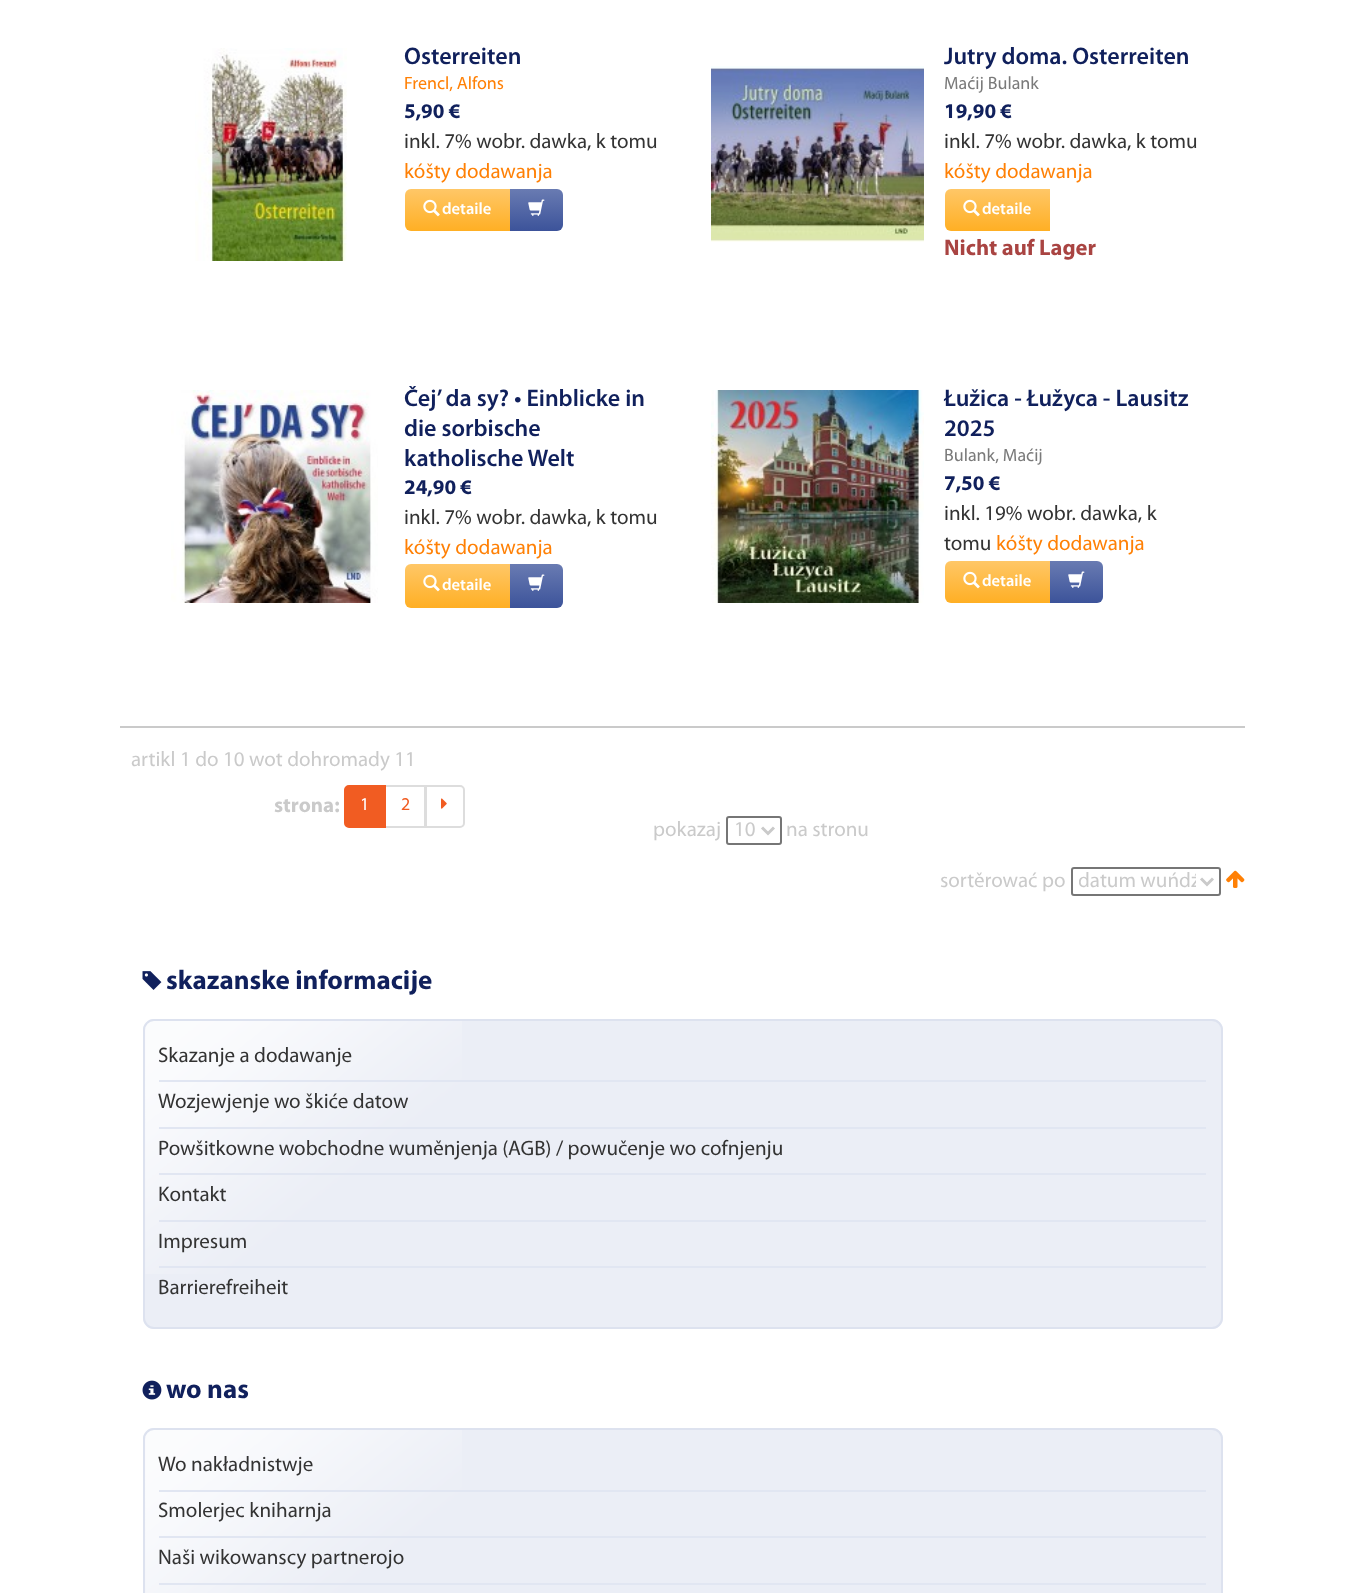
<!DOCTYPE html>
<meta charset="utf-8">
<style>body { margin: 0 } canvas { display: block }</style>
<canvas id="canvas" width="1363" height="1593"></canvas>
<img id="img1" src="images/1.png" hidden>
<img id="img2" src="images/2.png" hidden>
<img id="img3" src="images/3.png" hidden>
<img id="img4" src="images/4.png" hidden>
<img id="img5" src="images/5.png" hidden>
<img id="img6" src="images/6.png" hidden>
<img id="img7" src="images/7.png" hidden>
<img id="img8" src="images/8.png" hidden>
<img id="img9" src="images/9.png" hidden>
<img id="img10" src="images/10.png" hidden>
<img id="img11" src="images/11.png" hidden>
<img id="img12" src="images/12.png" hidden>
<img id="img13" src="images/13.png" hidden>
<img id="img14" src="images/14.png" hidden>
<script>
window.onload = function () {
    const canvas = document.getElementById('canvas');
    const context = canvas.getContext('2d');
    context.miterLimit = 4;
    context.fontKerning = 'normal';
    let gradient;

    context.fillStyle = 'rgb(255, 255, 255)';
    context.fillRect(0, 0, 1363, 1593);
    context.drawImage(document.getElementById('img1'), 195, 48, 152, 213);
    gradient = context.createLinearGradient(458, 189, 458, 231);
    gradient.addColorStop(0, 'rgb(255, 199, 103)');
    gradient.addColorStop(1, 'rgb(255, 175, 36)');
    context.fillStyle = gradient;
    context.beginPath();
    context.roundRect(405, 189, 105, 42, [6, 0, 0, 6]);
    context.fill();
    context.drawImage(document.getElementById('img2'), 423, 199, 17, 18);
    gradient = context.createLinearGradient(536, 189, 536, 231);
    gradient.addColorStop(0, 'rgb(105, 123, 178)');
    gradient.addColorStop(1, 'rgb(60, 83, 154)');
    context.fillStyle = gradient;
    context.beginPath();
    context.roundRect(510, 189, 53, 42, [0, 6, 6, 0]);
    context.fill();
    context.drawImage(document.getElementById('img3'), 528, 199, 17, 17);
    context.drawImage(document.getElementById('img4'), 711, 66, 213, 176);
    gradient = context.createLinearGradient(998, 189, 998, 231);
    gradient.addColorStop(0, 'rgb(255, 199, 103)');
    gradient.addColorStop(1, 'rgb(255, 175, 36)');
    context.fillStyle = gradient;
    context.beginPath();
    context.roundRect(945, 189, 105, 42, [6, 0, 0, 6]);
    context.fill();
    context.drawImage(document.getElementById('img2'), 963, 199, 17, 18);
    context.drawImage(document.getElementById('img5'), 171, 390, 207, 213);
    gradient = context.createLinearGradient(458, 564, 458, 608);
    gradient.addColorStop(0, 'rgb(255, 199, 103)');
    gradient.addColorStop(1, 'rgb(255, 175, 36)');
    context.fillStyle = gradient;
    context.beginPath();
    context.roundRect(405, 564, 105, 44, [6, 0, 0, 6]);
    context.fill();
    context.drawImage(document.getElementById('img6'), 423, 574, 17, 18);
    gradient = context.createLinearGradient(536, 564, 536, 608);
    gradient.addColorStop(0, 'rgb(105, 123, 178)');
    gradient.addColorStop(1, 'rgb(60, 83, 154)');
    context.fillStyle = gradient;
    context.beginPath();
    context.roundRect(510, 564, 53, 44, [0, 6, 6, 0]);
    context.fill();
    context.drawImage(document.getElementById('img7'), 528, 574, 17, 17);
    context.drawImage(document.getElementById('img8'), 711, 390, 213, 213);
    gradient = context.createLinearGradient(998, 561, 998, 603);
    gradient.addColorStop(0, 'rgb(255, 199, 103)');
    gradient.addColorStop(1, 'rgb(255, 175, 36)');
    context.fillStyle = gradient;
    context.beginPath();
    context.roundRect(945, 561, 105, 42, [6, 0, 0, 6]);
    context.fill();
    context.drawImage(document.getElementById('img2'), 963, 571, 17, 18);
    gradient = context.createLinearGradient(1076, 561, 1076, 603);
    gradient.addColorStop(0, 'rgb(105, 123, 178)');
    gradient.addColorStop(1, 'rgb(60, 83, 154)');
    context.fillStyle = gradient;
    context.beginPath();
    context.roundRect(1050, 561, 53, 42, [0, 6, 6, 0]);
    context.fill();
    context.drawImage(document.getElementById('img3'), 1068, 571, 17, 17);
    context.fillStyle = 'rgb(202, 202, 202)';
    context.fillRect(120, 726, 1125, 2);
    context.strokeStyle = 'rgb(221, 221, 221)';
    context.lineWidth = 2;
    context.strokeRect(385, 786, 40, 41);
    context.fillStyle = 'rgb(241, 92, 34)';
    context.beginPath();
    context.roundRect(345, 786, 40, 41, [4, 0, 0, 4]);
    context.fill();
    context.strokeStyle = 'rgb(241, 92, 34)';
    context.stroke();
    context.fillStyle = 'rgb(255, 255, 255)';
    context.beginPath();
    context.roundRect(426, 786, 38, 41, [0, 4, 4, 0]);
    context.fill();
    context.strokeStyle = 'rgb(221, 221, 221)';
    context.stroke();
    context.drawImage(document.getElementById('img9'), 441, 798, 6, 11);
    context.beginPath();
    context.roundRect(727, 817, 54, 27, 2);
    context.strokeStyle = 'rgb(118, 118, 118)';
    context.stroke();
    context.beginPath();
    context.moveTo(762, 827.5);
    context.lineTo(768, 833.5);
    context.lineTo(774, 827.5);
    context.strokeStyle = 'rgb(202, 202, 202)';
    context.lineWidth = 3;
    context.stroke();
    context.beginPath();
    context.roundRect(1072, 868, 148, 27, 2);
    context.strokeStyle = 'rgb(118, 118, 118)';
    context.lineWidth = 2;
    context.stroke();
    context.beginPath();
    context.moveTo(1201, 878.5);
    context.lineTo(1207, 884.5);
    context.lineTo(1213, 878.5);
    context.strokeStyle = 'rgb(202, 202, 202)';
    context.lineWidth = 3;
    context.stroke();
    context.drawImage(document.getElementById('img10'), 1226, 870, 19, 18);
    context.drawImage(document.getElementById('img11'), 142, 971, 20, 19);
    context.fillStyle = 'rgb(235, 238, 246)';
    context.beginPath();
    context.roundRect(143, 1019, 1080, 310, 11);
    context.fill();
    context.drawImage(document.getElementById('img12'), 144, 1020, 318, 254);
    context.beginPath();
    context.roundRect(144, 1020, 1078, 308, 10);
    context.strokeStyle = 'rgb(221, 226, 239)';
    context.lineWidth = 2;
    context.stroke();
    context.fillStyle = 'rgb(225, 230, 242)';
    context.fillRect(159, 1080, 1047, 2);
    context.fillRect(159, 1127, 1047, 2);
    context.fillRect(159, 1173, 1047, 2);
    context.fillRect(159, 1220, 1047, 2);
    context.fillRect(159, 1266, 1047, 2);
    context.drawImage(document.getElementById('img13'), 142, 1380, 20, 20);
    context.fillStyle = 'rgb(235, 238, 246)';
    context.beginPath();
    context.roundRect(143, 1428, 1080, 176, 11);
    context.fill();
    context.drawImage(document.getElementById('img14'), 144, 1429, 318, 164);
    context.beginPath();
    context.roundRect(144, 1429, 1078, 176, 10);
    context.stroke();
    context.fillStyle = 'rgb(225, 230, 242)';
    context.fillRect(159, 1490, 1047, 2);
    context.fillRect(159, 1536, 1047, 2);
    context.fillRect(159, 1583, 1047, 2);
    context.font = '600 24px Myriad';
    context.fillStyle = 'rgb(16, 32, 92)';
    context.fillText('Osterreiten', 404, 64);
    context.font = '18px Myriad';
    context.fillStyle = 'rgb(255, 128, 5)';
    context.fillText('Frencl, Alfons', 404, 89);
    context.font = 'bold 21px Myriad';
    context.fillStyle = 'rgb(16, 32, 92)';
    context.fillText('5,90 €', 404, 118);
    context.font = '21px Myriad';
    context.fillStyle = 'rgb(51, 51, 51)';
    context.fillText('inkl. 7% wobr. dawka, k tomu', 404, 148);
    context.fillStyle = 'rgb(255, 128, 5)';
    context.fillText('kóšty dodawanja', 404, 178);
    context.font = '600 16.5px Myriad';
    context.fillStyle = 'rgb(255, 255, 255)';
    context.fillText('detaile', 442, 214);
    context.font = '600 24px Myriad';
    context.fillStyle = 'rgb(16, 32, 92)';
    context.fillText('Jutry doma. Osterreiten', 944, 64);
    context.font = '18px Myriad';
    context.fillStyle = 'rgb(122, 122, 122)';
    context.fillText('Maćij Bulank', 944, 89);
    context.font = 'bold 21px Myriad';
    context.fillStyle = 'rgb(16, 32, 92)';
    context.fillText('19,90 €', 944, 118);
    context.font = '21px Myriad';
    context.fillStyle = 'rgb(51, 51, 51)';
    context.fillText('inkl. 7% wobr. dawka, k tomu', 944, 148);
    context.fillStyle = 'rgb(255, 128, 5)';
    context.fillText('kóšty dodawanja', 944, 178);
    context.font = '600 16.5px Myriad';
    context.fillStyle = 'rgb(255, 255, 255)';
    context.fillText('detaile', 982, 214);
    context.font = 'bold 22.5px Myriad';
    context.fillStyle = 'rgb(169, 68, 66)';
    context.fillText('Nicht auf Lager', 944, 255);
    context.font = '600 24px Myriad';
    context.fillStyle = 'rgb(16, 32, 92)';
    context.fillText('Čej’ da sy? • Einblicke in', 404, 406);
    context.fillText('die sorbische', 404, 436);
    context.fillText('katholische Welt', 404, 466);
    context.font = 'bold 21px Myriad';
    context.fillText('24,90 €', 404, 494);
    context.font = '21px Myriad';
    context.fillStyle = 'rgb(51, 51, 51)';
    context.fillText('inkl. 7% wobr. dawka, k tomu', 404, 524);
    context.fillStyle = 'rgb(255, 128, 5)';
    context.fillText('kóšty dodawanja', 404, 554);
    context.font = '600 16.5px Myriad';
    context.fillStyle = 'rgb(255, 255, 255)';
    context.fillText('detaile', 442, 590);
    context.font = '600 24px Myriad';
    context.fillStyle = 'rgb(16, 32, 92)';
    context.fillText('Łužica - Łužyca - Lausitz', 944, 406);
    context.fillText('2025', 944, 436);
    context.font = '18px Myriad';
    context.fillStyle = 'rgb(122, 122, 122)';
    context.fillText('Bulank, Maćij', 944, 461);
    context.font = 'bold 21px Myriad';
    context.fillStyle = 'rgb(16, 32, 92)';
    context.fillText('7,50 €', 944, 490);
    context.font = '21px Myriad';
    context.fillStyle = 'rgb(51, 51, 51)';
    context.fillText('inkl. 19% wobr. dawka, k', 944, 520);
    context.fillText('tomu', 944, 550);
    context.fillStyle = 'rgb(255, 128, 5)';
    context.fillText('kóšty dodawanja', 996, 550);
    context.font = '600 16.5px Myriad';
    context.fillStyle = 'rgb(255, 255, 255)';
    context.fillText('detaile', 982, 586);
    context.font = '21px Myriad';
    context.fillStyle = 'rgb(202, 202, 202)';
    context.fillText('artikl 1 do 10 wot dohromady 11', 131, 766);
    context.font = 'bold 21px Myriad';
    context.fillText('strona:', 274, 812);
    context.font = '18px Myriad';
    context.fillStyle = 'rgb(255, 255, 255)';
    context.fillText('1', 360, 810);
    context.fillStyle = 'rgb(241, 92, 34)';
    context.fillText('2', 401, 810);
    context.font = '21px Myriad';
    context.fillStyle = 'rgb(202, 202, 202)';
    context.fillText('pokazaj', 653, 836);
    context.fillText('10', 734, 836);
    context.fillText('na stronu', 786, 836);
    context.fillText('sortěrować po', 940, 887);
    context.save();
    context.beginPath();
    context.rect(1079, 869, 117, 25);
    context.clip();
    context.fillText('datum wuńdź', 1078, 887);
    context.restore();
    context.font = 'bold 27px Myriad';
    context.fillStyle = 'rgb(16, 32, 92)';
    context.fillText('skazanske informacije', 166, 989);
    context.font = '21px Myriad';
    context.fillStyle = 'rgb(51, 51, 51)';
    context.fillText('Skazanje a dodawanje', 158, 1062);
    context.fillText('Wozjewjenje wo škiće datow', 158, 1108);
    context.fillText('Powšitkowne wobchodne wuměnjenja (AGB) / powučenje wo cofnjenju', 158, 1155);
    context.fillText('Kontakt', 158, 1201);
    context.fillText('Impresum', 158, 1248);
    context.fillText('Barrierefreiheit', 158, 1294);
    context.font = 'bold 27px Myriad';
    context.fillStyle = 'rgb(16, 32, 92)';
    context.fillText('wo nas', 166, 1398);
    context.font = '21px Myriad';
    context.fillStyle = 'rgb(51, 51, 51)';
    context.fillText('Wo nakładnistwje', 158, 1471);
    context.fillText('Smolerjec kniharnja', 158, 1517);
    context.fillText('Naši wikowanscy partnerojo', 158, 1564);
};
</script>
